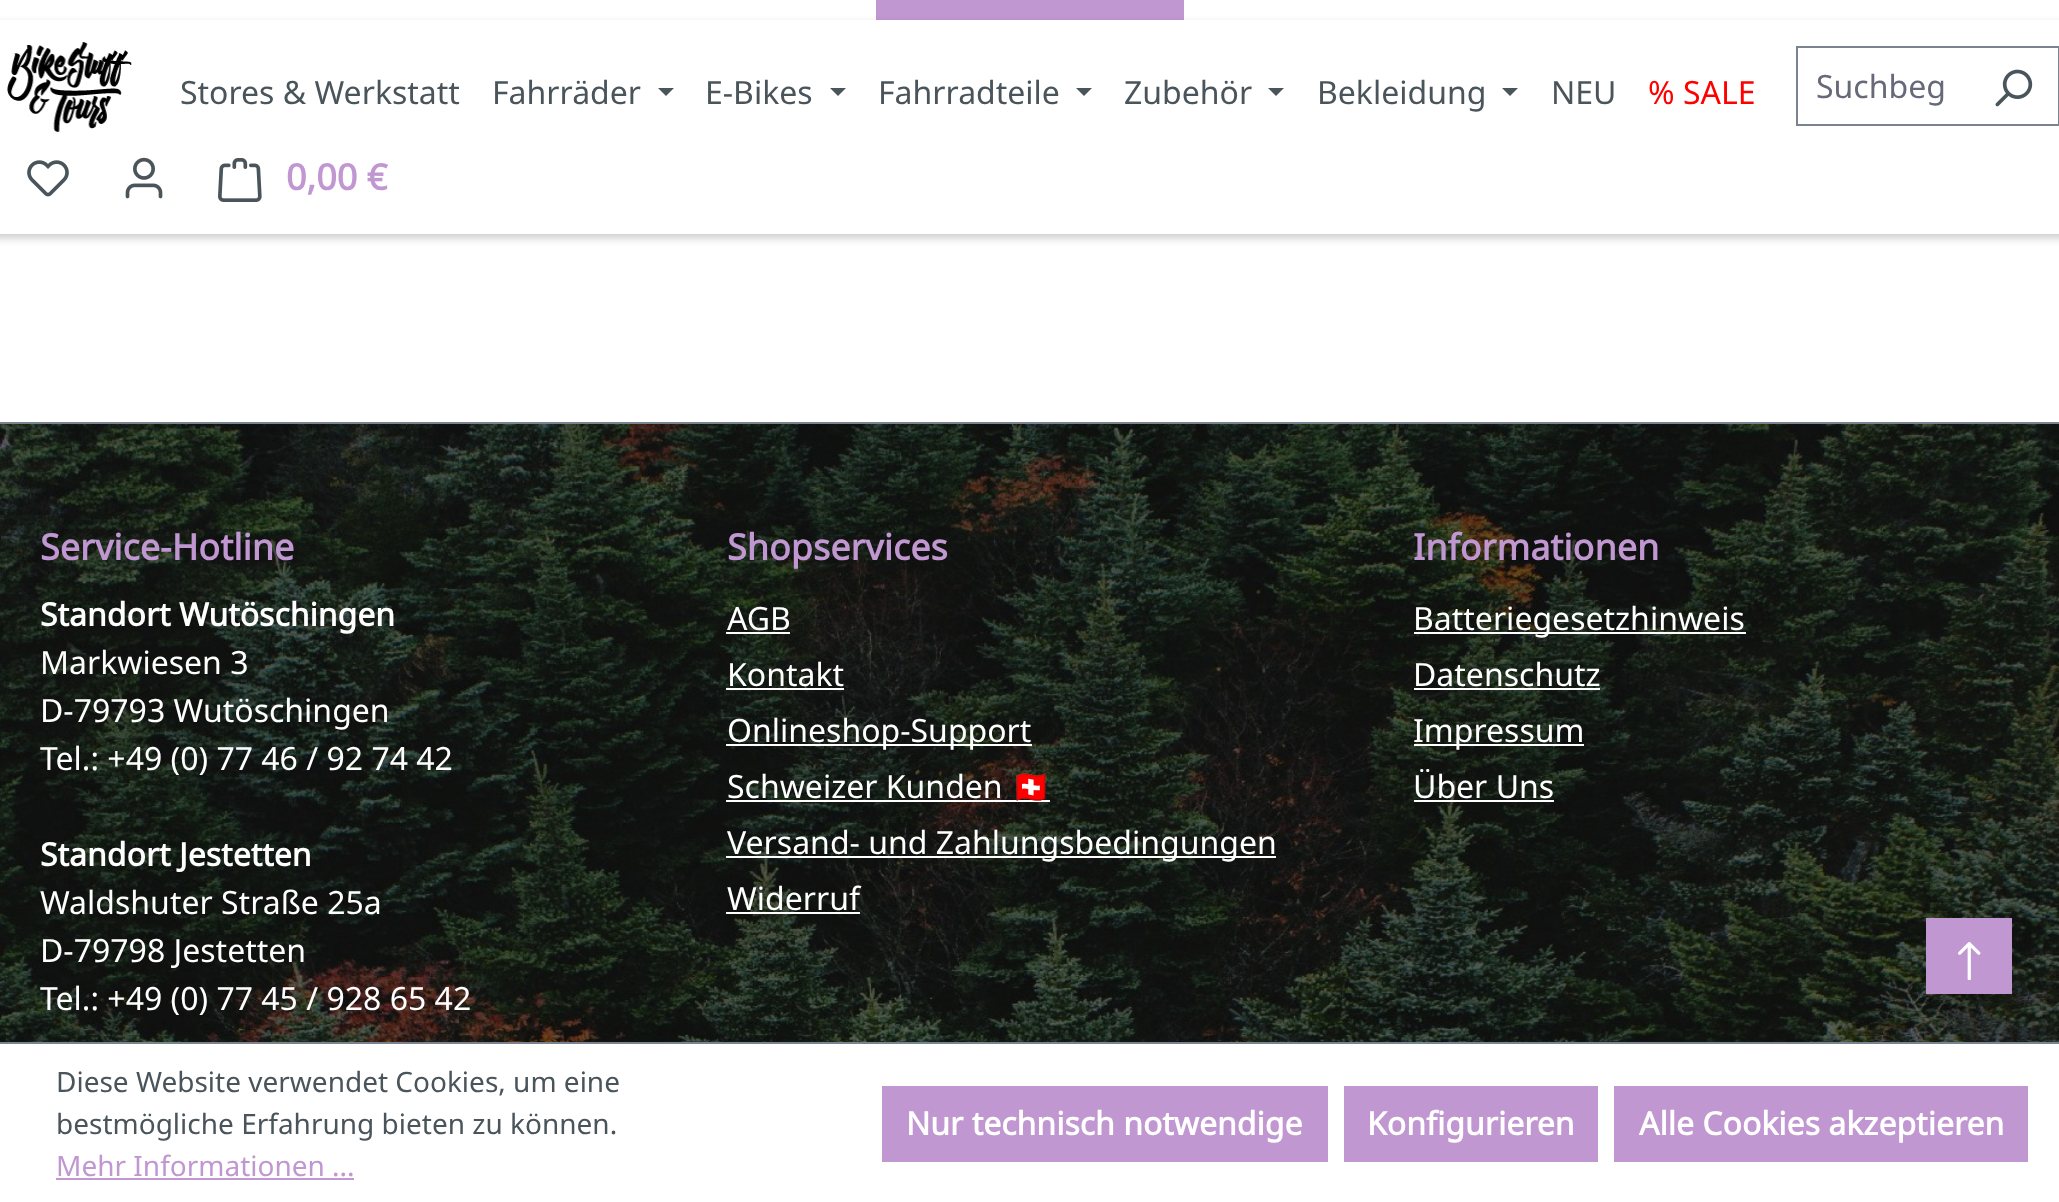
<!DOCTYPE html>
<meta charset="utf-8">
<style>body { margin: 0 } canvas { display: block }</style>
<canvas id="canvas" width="2059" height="1202"></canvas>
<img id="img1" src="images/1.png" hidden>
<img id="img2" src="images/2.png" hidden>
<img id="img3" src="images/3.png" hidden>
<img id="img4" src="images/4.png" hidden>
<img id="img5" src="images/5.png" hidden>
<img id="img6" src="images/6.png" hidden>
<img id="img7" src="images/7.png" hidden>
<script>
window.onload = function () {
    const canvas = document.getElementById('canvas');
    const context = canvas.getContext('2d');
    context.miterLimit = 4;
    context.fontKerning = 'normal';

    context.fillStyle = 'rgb(255, 255, 255)';
    context.fillRect(0, 0, 2059, 1202);
    context.fillStyle = 'rgb(193, 151, 210)';
    context.fillRect(876, 0, 308, 20);
    context.fillStyle = 'rgba(0, 0, 0, 0.2)';
    context.filter = 'blur(4px)';
    context.beginPath();
    context.rect(-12, 24, 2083, 214);
    context.fill();
    context.filter = 'none';
    context.fillStyle = 'rgb(255, 255, 255)';
    context.fillRect(0, 20, 2059, 214);
    context.drawImage(document.getElementById('img1'), 7, 42, 125, 90);
    context.fillStyle = 'rgb(74, 84, 91)';
    context.beginPath();
    context.moveTo(658, 88);
    context.lineTo(674, 88);
    context.lineTo(666, 96);
    context.closePath();
    context.fill();
    context.beginPath();
    context.moveTo(830, 88);
    context.lineTo(846, 88);
    context.lineTo(838, 96);
    context.closePath();
    context.fill();
    context.beginPath();
    context.moveTo(1076, 88);
    context.lineTo(1092, 88);
    context.lineTo(1084, 96);
    context.closePath();
    context.fill();
    context.beginPath();
    context.moveTo(1268, 88);
    context.lineTo(1284, 88);
    context.lineTo(1276, 96);
    context.closePath();
    context.fill();
    context.beginPath();
    context.moveTo(1502, 88);
    context.lineTo(1518, 88);
    context.lineTo(1510, 96);
    context.closePath();
    context.fill();
    context.fillStyle = 'rgb(121, 132, 144)';
    context.fillRect(1796, 46, 263, 2);
    context.fillRect(1796, 124, 172, 2);
    context.fillRect(1796, 46, 2, 80);
    context.fillRect(2058, 46, 1, 80);
    context.fillRect(1966, 124, 93, 2);
    context.drawImage(document.getElementById('img2'), 1995, 69, 38, 38);
    context.drawImage(document.getElementById('img3'), 27, 160, 42, 37);
    context.drawImage(document.getElementById('img4'), 125, 157, 38, 42);
    context.drawImage(document.getElementById('img5'), 218, 158, 44, 44);
    context.drawImage(document.getElementById('img6'), 0, 424, 2059, 618);
    context.fillRect(0, 422, 2059, 2);
    context.fillStyle = 'rgb(255, 255, 255)';
    context.fillRect(726, 632, 64, 2);
    context.fillRect(726, 688, 118, 2);
    context.fillRect(726, 744, 306, 2);
    context.fillRect(726, 800, 324, 2);
    context.fillRect(726, 856, 550, 2);
    context.fillRect(726, 912, 134, 2);
    context.fillRect(1414, 632, 332, 2);
    context.fillRect(1414, 688, 186, 2);
    context.fillRect(1414, 744, 170, 2);
    context.fillRect(1414, 800, 140, 2);
    context.fillStyle = 'rgb(193, 151, 210)';
    context.fillRect(1926, 918, 86, 76);
    context.drawImage(document.getElementById('img7'), 1958, 942, 23, 38);
    context.fillStyle = 'rgb(121, 132, 144)';
    context.fillRect(0, 1042, 2059, 2);
    context.fillStyle = 'rgb(193, 151, 210)';
    context.fillRect(56, 1178, 298, 2);
    context.fillRect(882, 1086, 446, 76);
    context.fillRect(1344, 1086, 254, 76);
    context.fillRect(1614, 1086, 414, 76);
    context.font = '32px Noto Sans';
    context.fillStyle = 'rgb(74, 84, 91)';
    context.fillText('Stores & Werkstatt', 180, 104);
    context.fillText('Fahrräder', 492, 104);
    context.fillText('E-Bikes', 705, 104);
    context.fillText('Fahrradteile', 878, 104);
    context.fillText('Zubehör', 1124, 104);
    context.fillText('Bekleidung', 1317, 104);
    context.fillText('NEU', 1551, 104);
    context.fillStyle = 'rgb(255, 0, 0)';
    context.fillText('% SALE', 1648, 104);
    context.fillStyle = 'rgb(102, 105, 119)';
    context.fillText('Suchbeg', 1816, 98);
    context.font = 'bold 36px Noto Sans';
    context.fillStyle = 'rgb(193, 151, 210)';
    context.fillText('0,00 €', 286, 190);
    context.fillText('Service-Hotline', 40, 560);
    context.font = 'bold 32px Noto Sans';
    context.fillStyle = 'rgb(255, 255, 255)';
    context.fillText('Standort Wutöschingen', 40, 626);
    context.font = '32px Noto Sans';
    context.fillText('Markwiesen 3', 40, 674);
    context.fillText('D-79793 Wutöschingen', 40, 722);
    context.fillText('Tel.: +49 (0) 77 46 / 92 74 42', 40, 770);
    context.font = 'bold 32px Noto Sans';
    context.fillText('Standort Jestetten', 40, 866);
    context.font = '32px Noto Sans';
    context.fillText('Waldshuter Straße 25a', 40, 914);
    context.fillText('D-79798 Jestetten', 40, 962);
    context.fillText('Tel.: +49 (0) 77 45 / 928 65 42', 40, 1010);
    context.font = 'bold 36px Noto Sans';
    context.fillStyle = 'rgb(193, 151, 210)';
    context.fillText('Shopservices', 727, 560);
    context.font = '32px Noto Sans';
    context.fillStyle = 'rgb(255, 255, 255)';
    context.fillText('AGB', 727, 630);
    context.fillText('Kontakt', 727, 686);
    context.fillText('Onlineshop-Support', 727, 742);
    context.fillText('Schweizer Kunden', 727, 798);
    context.font = '32px Noto Color Emoji';
    context.fillText('🇨🇭', 1011, 798);
    context.font = '32px Noto Sans';
    context.fillText('Versand- und Zahlungsbedingungen', 727, 854);
    context.fillText('Widerruf', 727, 910);
    context.font = 'bold 36px Noto Sans';
    context.fillStyle = 'rgb(193, 151, 210)';
    context.fillText('Informationen', 1413, 560);
    context.font = '32px Noto Sans';
    context.fillStyle = 'rgb(255, 255, 255)';
    context.fillText('Batteriegesetzhinweis', 1413, 630);
    context.fillText('Datenschutz', 1413, 686);
    context.fillText('Impressum', 1413, 742);
    context.fillText('Über Uns', 1413, 798);
    context.font = '28px Noto Sans';
    context.fillStyle = 'rgb(74, 84, 91)';
    context.fillText('Diese Website verwendet Cookies, um eine', 56, 1092);
    context.fillText('bestmögliche Erfahrung bieten zu können.', 56, 1134);
    context.fillStyle = 'rgb(193, 151, 210)';
    context.fillText('Mehr Informationen ...', 56, 1176);
    context.font = 'bold 32px Noto Sans';
    context.fillStyle = 'rgb(255, 255, 255)';
    context.fillText('Nur technisch notwendige', 906, 1135);
    context.fillText('Konfigurieren', 1367, 1135);
    context.fillText('Alle Cookies akzeptieren', 1639, 1135);
};
</script>
